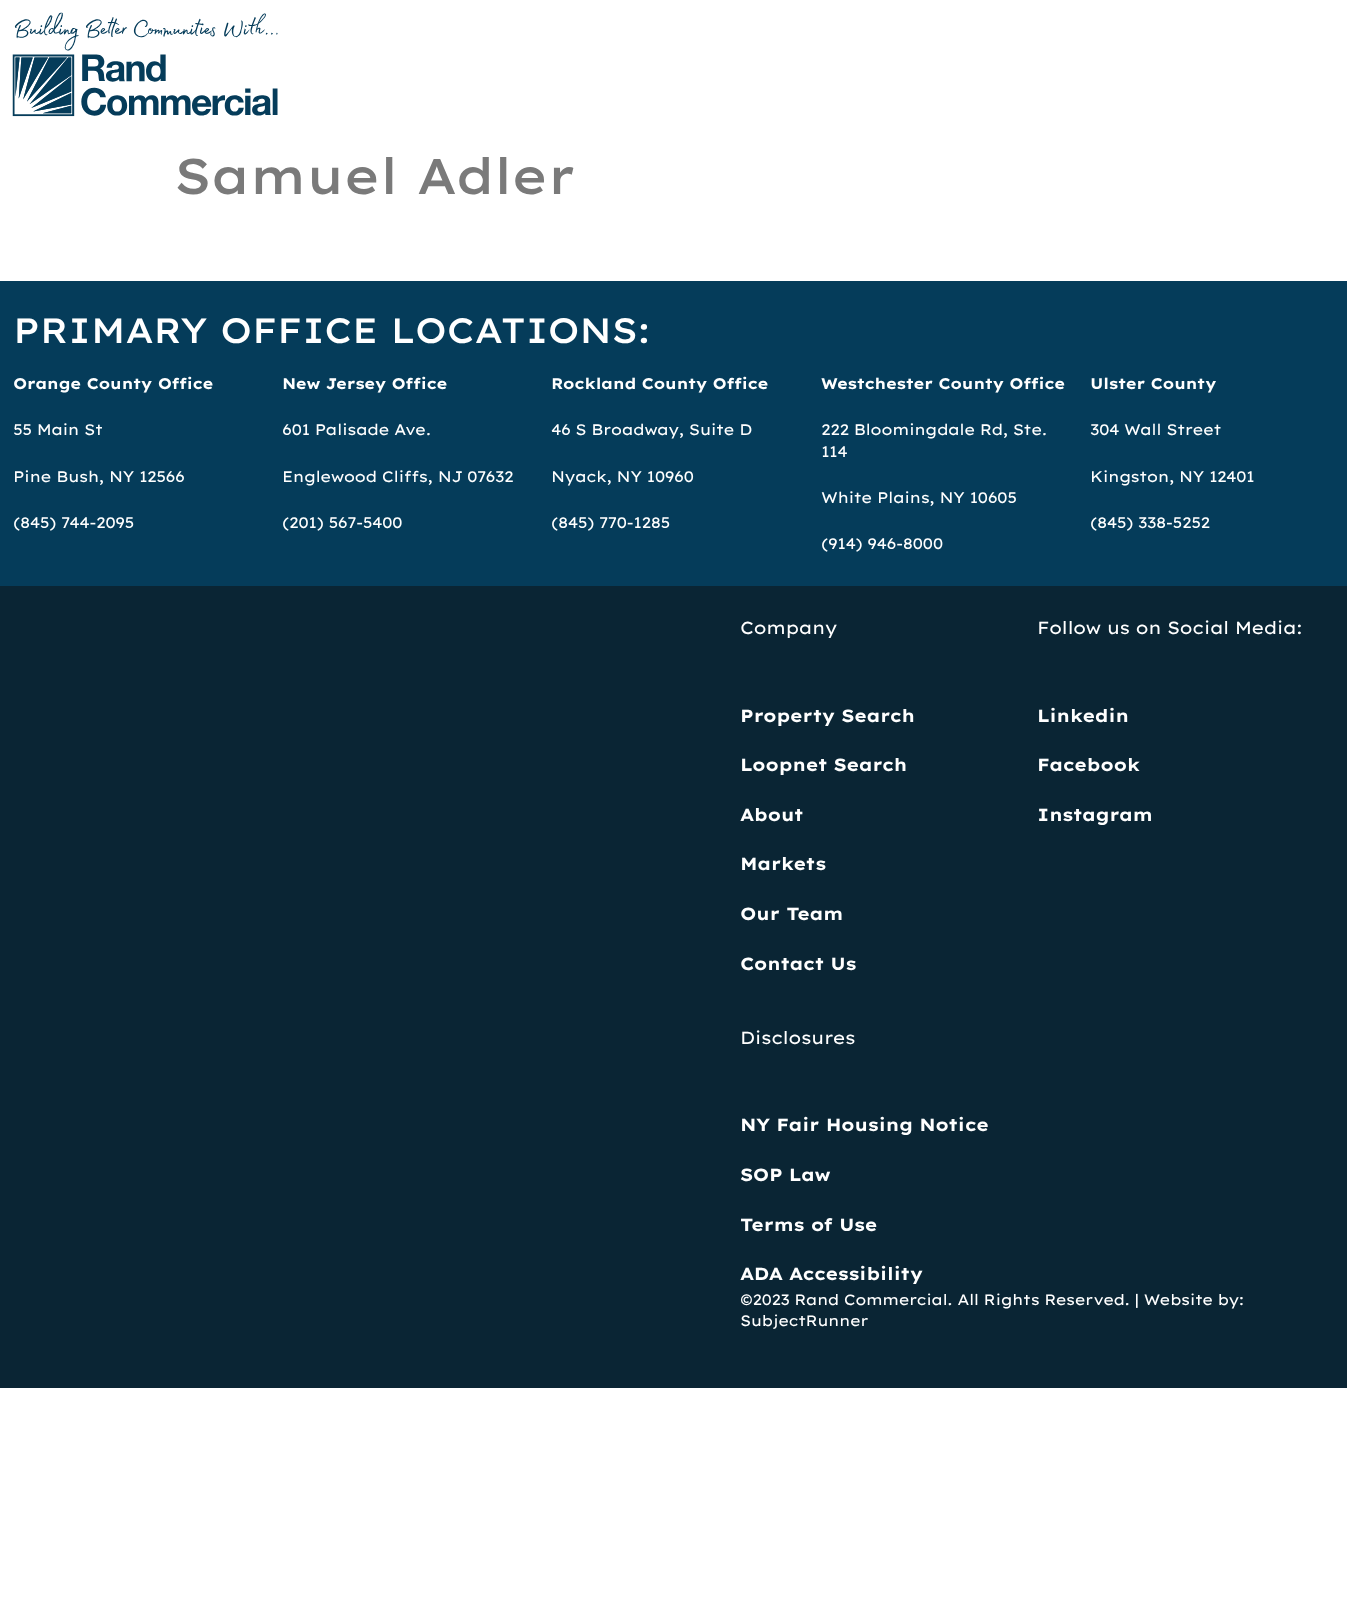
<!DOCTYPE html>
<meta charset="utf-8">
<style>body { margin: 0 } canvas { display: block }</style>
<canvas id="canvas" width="1347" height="1610"></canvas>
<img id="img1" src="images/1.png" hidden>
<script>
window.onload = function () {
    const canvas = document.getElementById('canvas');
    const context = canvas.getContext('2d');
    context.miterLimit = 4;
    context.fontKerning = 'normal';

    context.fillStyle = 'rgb(255, 255, 255)';
    context.fillRect(0, 0, 1347, 1610);
    context.drawImage(document.getElementById('img1'), 12, 12, 266, 105);
    context.fillStyle = 'rgb(5, 60, 90)';
    context.fillRect(0, 281, 1347, 305);
    context.fillStyle = 'rgb(10, 37, 52)';
    context.fillRect(0, 586, 1347, 802);
    context.letterSpacing = '-0.5px';
    context.font = '500 50px Lexend Exa';
    context.fillStyle = 'rgb(122, 122, 122)';
    context.fillText('Samuel Adler', 174, 194);
    context.font = '500 35.2px Lexend Exa';
    context.fillStyle = 'rgb(255, 255, 255)';
    context.fillText('PRIMARY OFFICE LOCATIONS:', 13, 343);
    context.font = 'bold 15.25px Lexend Exa';
    context.fillText('Orange County Office', 13, 389);
    context.font = '15.25px Lexend Exa';
    context.fillText('55 Main St', 13, 435);
    context.fillText('Pine Bush, NY 12566', 13, 482);
    context.fillText('(845) 744-2095', 13, 528);
    context.font = 'bold 15.25px Lexend Exa';
    context.fillText('New Jersey Office', 282, 389);
    context.font = '15.25px Lexend Exa';
    context.fillText('601 Palisade Ave.', 282, 435);
    context.fillText('Englewood Cliffs, NJ 07632', 282, 482);
    context.fillText('(201) 567-5400', 282, 528);
    context.font = 'bold 15.25px Lexend Exa';
    context.fillText('Rockland County Office', 551, 389);
    context.font = '15.25px Lexend Exa';
    context.fillText('46 S Broadway, Suite D', 551, 435);
    context.fillText('Nyack, NY 10960', 551, 482);
    context.fillText('(845) 770-1285', 551, 528);
    context.font = 'bold 15.25px Lexend Exa';
    context.fillText('Westchester County Office', 821, 389);
    context.font = '15.25px Lexend Exa';
    context.fillText('222 Bloomingdale Rd, Ste.', 821, 435);
    context.fillText('114', 821, 457);
    context.fillText('White Plains, NY 10605', 821, 503);
    context.fillText('(914) 946-8000', 821, 549);
    context.font = 'bold 15.25px Lexend Exa';
    context.fillText('Ulster County', 1090, 389);
    context.font = '15.25px Lexend Exa';
    context.fillText('304 Wall Street', 1090, 435);
    context.fillText('Kingston, NY 12401', 1090, 482);
    context.fillText('(845) 338-5252', 1090, 528);
    context.font = '17.6px Lexend Exa';
    context.fillText('Follow us on Social Media:', 1037, 634);
    context.font = 'bold 17.6px Lexend Exa';
    context.fillText('Linkedin', 1037, 722);
    context.fillText('Facebook', 1037, 771);
    context.fillText('Instagram', 1037, 821);
    context.font = '17.6px Lexend Exa';
    context.fillText('Company', 740, 634);
    context.font = 'bold 17.6px Lexend Exa';
    context.fillText('Property Search', 740, 722);
    context.fillText('Loopnet Search', 740, 771);
    context.fillText('About', 740, 821);
    context.fillText('Markets', 740, 870);
    context.fillText('Our Team', 740, 920);
    context.fillText('Contact Us', 740, 970);
    context.font = '17.6px Lexend Exa';
    context.fillText('Disclosures', 740, 1044);
    context.font = 'bold 17.6px Lexend Exa';
    context.fillText('NY Fair Housing Notice', 740, 1131);
    context.fillText('SOP Law', 740, 1181);
    context.fillText('Terms of Use', 740, 1231);
    context.fillText('ADA Accessibility', 740, 1280);
    context.font = '15px Lexend Exa';
    context.fillText('©2023 Rand Commercial. All Rights Reserved. | Website by:', 740, 1305);
    context.fillText('SubjectRunner', 740, 1326);
};
</script>
